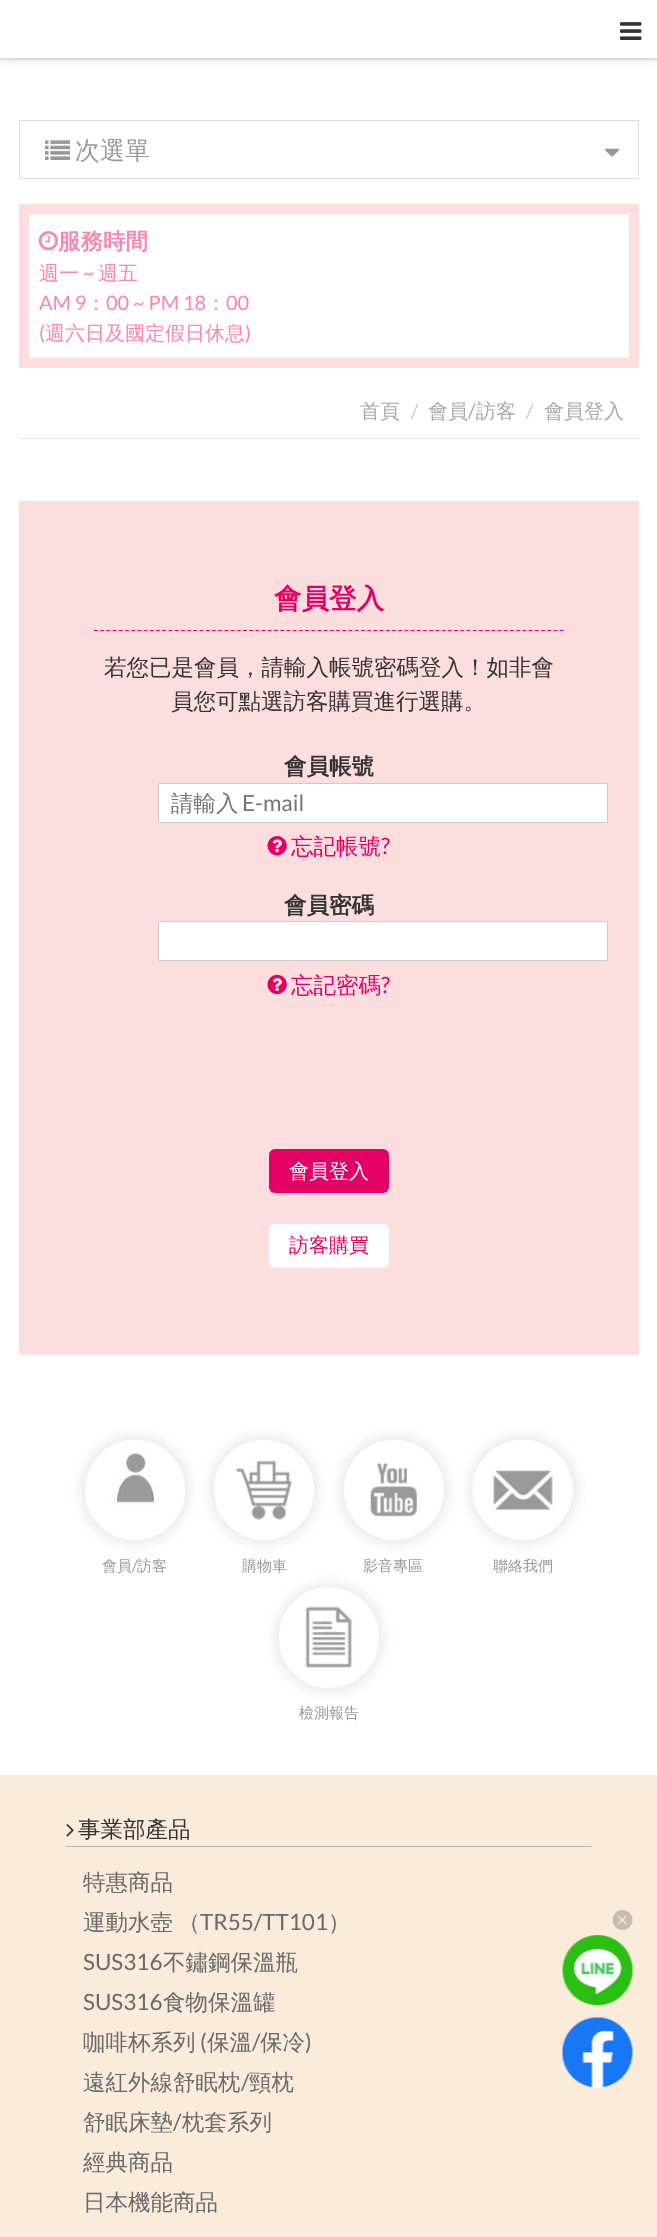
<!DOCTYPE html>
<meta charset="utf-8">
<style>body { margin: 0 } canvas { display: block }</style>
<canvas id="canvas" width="657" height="2237"></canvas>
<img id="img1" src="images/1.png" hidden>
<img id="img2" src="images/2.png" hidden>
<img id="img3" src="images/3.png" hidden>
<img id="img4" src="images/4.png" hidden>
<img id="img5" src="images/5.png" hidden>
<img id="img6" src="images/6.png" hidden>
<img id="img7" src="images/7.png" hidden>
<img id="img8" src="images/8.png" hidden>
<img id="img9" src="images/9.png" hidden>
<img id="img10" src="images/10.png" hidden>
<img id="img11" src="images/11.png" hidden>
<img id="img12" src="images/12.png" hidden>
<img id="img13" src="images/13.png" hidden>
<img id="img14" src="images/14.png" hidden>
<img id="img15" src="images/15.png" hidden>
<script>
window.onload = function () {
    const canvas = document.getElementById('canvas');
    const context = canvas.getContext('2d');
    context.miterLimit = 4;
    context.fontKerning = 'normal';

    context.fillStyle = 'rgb(255, 255, 255)';
    context.fillRect(0, 0, 657, 2237);
    context.save();
    context.beginPath();
    context.rect(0, 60, 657, 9);
    context.clip();
    context.fillStyle = 'rgb(221, 221, 221)';
    context.filter = 'blur(4.5px)';
    context.beginPath();
    context.rect(0, 0, 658, 60);
    context.fill();
    context.filter = 'none';
    context.restore();
    context.fillStyle = 'rgb(221, 221, 221)';
    context.fillRect(0, 59, 657, 1);
    context.beginPath();
    context.moveTo(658, 59);
    context.lineTo(0, 59);
    context.lineTo(1, 58);
    context.lineTo(656, 58);
    context.closePath();
    context.fill();
    context.drawImage(document.getElementById('img1'), 620, 22, 22, 18);
    context.strokeStyle = 'rgb(221, 221, 221)';
    context.strokeRect(19.5, 120.5, 619, 58);
    context.drawImage(document.getElementById('img2'), 45, 140, 25, 20);
    context.drawImage(document.getElementById('img3'), 605, 148, 15, 9);
    context.strokeStyle = 'rgb(253, 222, 222)';
    context.lineWidth = 10;
    context.strokeRect(24, 209, 610, 154);
    context.drawImage(document.getElementById('img4'), 38, 231, 20, 20);
    context.fillStyle = 'rgb(229, 229, 229)';
    context.fillRect(19, 438, 620, 1);
    context.fillStyle = 'rgb(253, 222, 222)';
    context.fillRect(19, 501, 620, 854);
    context.beginPath();
    context.moveTo(94, 630.5);
    context.lineTo(564, 630.5);
    context.strokeStyle = 'rgb(229, 0, 101)';
    context.lineWidth = 1.2;
    context.setLineDash([3.75, 2.46]);
    context.stroke();
    context.fillStyle = 'rgb(255, 255, 255)';
    context.beginPath();
    context.rect(158.5, 783.5, 449, 39);
    context.fill();
    context.strokeStyle = 'rgb(204, 204, 204)';
    context.lineWidth = 1;
    context.setLineDash([]);
    context.stroke();
    context.drawImage(document.getElementById('img5'), 267, 836, 20, 20);
    context.beginPath();
    context.rect(158.5, 921.5, 449, 39);
    context.fill();
    context.stroke();
    context.drawImage(document.getElementById('img6'), 267, 974, 20, 21);
    context.fillStyle = 'rgb(229, 0, 101)';
    context.beginPath();
    context.roundRect(269, 1149, 120, 44, 6);
    context.fill();
    context.fillStyle = 'rgb(255, 255, 255)';
    context.beginPath();
    context.roundRect(269, 1224, 120, 44, 6);
    context.fill();
    context.fillStyle = 'rgb(251, 235, 218)';
    context.fillRect(0, 1775, 657, 462);
    context.save();
    context.beginPath();
    context.moveTo(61, 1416);
    context.lineTo(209, 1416);
    context.lineTo(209, 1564);
    context.lineTo(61, 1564);
    context.closePath();
    context.moveTo(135, 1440);
    context.bezierCurveTo(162.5, 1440, 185, 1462.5, 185, 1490);
    context.bezierCurveTo(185, 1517.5, 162.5, 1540, 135, 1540);
    context.bezierCurveTo(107.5, 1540, 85, 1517.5, 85, 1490);
    context.bezierCurveTo(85, 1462.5, 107.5, 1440, 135, 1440);
    context.closePath();
    context.clip('evenodd');
    context.fillStyle = 'rgba(0, 0, 0, 0.08)';
    context.filter = 'blur(6px)';
    context.beginPath();
    context.roundRect(80, 1435, 110, 110, 55);
    context.fill();
    context.filter = 'none';
    context.restore();
    context.drawImage(document.getElementById('img7'), 85, 1440, 100, 97);
    context.save();
    context.beginPath();
    context.moveTo(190, 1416);
    context.lineTo(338, 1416);
    context.lineTo(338, 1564);
    context.lineTo(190, 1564);
    context.closePath();
    context.moveTo(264, 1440);
    context.bezierCurveTo(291.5, 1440, 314, 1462.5, 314, 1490);
    context.bezierCurveTo(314, 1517.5, 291.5, 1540, 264, 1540);
    context.bezierCurveTo(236.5, 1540, 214, 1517.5, 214, 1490);
    context.bezierCurveTo(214, 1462.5, 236.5, 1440, 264, 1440);
    context.closePath();
    context.clip('evenodd');
    context.fillStyle = 'rgba(0, 0, 0, 0.08)';
    context.filter = 'blur(6px)';
    context.beginPath();
    context.roundRect(209, 1435, 110, 110, 55);
    context.fill();
    context.filter = 'none';
    context.restore();
    context.drawImage(document.getElementById('img8'), 216, 1440, 98, 80);
    context.save();
    context.beginPath();
    context.moveTo(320, 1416);
    context.lineTo(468, 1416);
    context.lineTo(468, 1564);
    context.lineTo(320, 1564);
    context.closePath();
    context.moveTo(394, 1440);
    context.bezierCurveTo(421.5, 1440, 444, 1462.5, 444, 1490);
    context.bezierCurveTo(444, 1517.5, 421.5, 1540, 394, 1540);
    context.bezierCurveTo(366.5, 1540, 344, 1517.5, 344, 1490);
    context.bezierCurveTo(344, 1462.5, 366.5, 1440, 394, 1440);
    context.closePath();
    context.clip('evenodd');
    context.fillStyle = 'rgba(0, 0, 0, 0.08)';
    context.filter = 'blur(6px)';
    context.beginPath();
    context.roundRect(339, 1435, 110, 110, 55);
    context.fill();
    context.filter = 'none';
    context.restore();
    context.drawImage(document.getElementById('img9'), 346, 1440, 98, 78);
    context.save();
    context.beginPath();
    context.moveTo(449, 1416);
    context.lineTo(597, 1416);
    context.lineTo(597, 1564);
    context.lineTo(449, 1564);
    context.closePath();
    context.moveTo(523, 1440);
    context.bezierCurveTo(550.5, 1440, 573, 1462.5, 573, 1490);
    context.bezierCurveTo(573, 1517.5, 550.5, 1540, 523, 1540);
    context.bezierCurveTo(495.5, 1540, 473, 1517.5, 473, 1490);
    context.bezierCurveTo(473, 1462.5, 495.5, 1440, 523, 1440);
    context.closePath();
    context.clip('evenodd');
    context.fillStyle = 'rgba(0, 0, 0, 0.08)';
    context.filter = 'blur(6px)';
    context.beginPath();
    context.roundRect(468, 1435, 110, 110, 55);
    context.fill();
    context.filter = 'none';
    context.restore();
    context.drawImage(document.getElementById('img10'), 472, 1440, 101, 76);
    context.save();
    context.beginPath();
    context.moveTo(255, 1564);
    context.lineTo(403, 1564);
    context.lineTo(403, 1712);
    context.lineTo(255, 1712);
    context.closePath();
    context.moveTo(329, 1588);
    context.bezierCurveTo(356.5, 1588, 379, 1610.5, 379, 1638);
    context.bezierCurveTo(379, 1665.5, 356.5, 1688, 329, 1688);
    context.bezierCurveTo(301.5, 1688, 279, 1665.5, 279, 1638);
    context.bezierCurveTo(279, 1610.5, 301.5, 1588, 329, 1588);
    context.closePath();
    context.clip('evenodd');
    context.fillStyle = 'rgba(0, 0, 0, 0.08)';
    context.filter = 'blur(6px)';
    context.beginPath();
    context.roundRect(274, 1583, 110, 110, 55);
    context.fill();
    context.filter = 'none';
    context.restore();
    context.drawImage(document.getElementById('img11'), 281, 1587, 98, 82);
    context.fillStyle = 'rgb(181, 181, 181)';
    context.fillRect(66, 1846, 525, 1);
    context.drawImage(document.getElementById('img12'), 66, 1824, 8, 13);
    context.drawImage(document.getElementById('img13'), 613, 1910, 20, 20);
    context.drawImage(document.getElementById('img14'), 562, 1935, 71, 70);
    context.drawImage(document.getElementById('img15'), 562, 2017, 71, 71);
    context.font = '500 25px WenQuanYi Zen Hei';
    context.fillStyle = 'rgb(154, 154, 154)';
    context.fillText('次選單', 75, 159);
    context.font = 'bold 22.5px WenQuanYi Zen Hei';
    context.fillStyle = 'rgb(253, 133, 176)';
    context.fillText('服務時間', 58, 249);
    context.font = '500 20px WenQuanYi Zen Hei';
    context.fillText('週一', 39, 280);
    context.font = '20px Lato';
    context.fillText('~', 83, 280);
    context.font = '500 20px WenQuanYi Zen Hei';
    context.fillText('週五', 98, 280);
    context.font = '20px Lato';
    context.fillText('AM 9', 39, 310);
    context.font = '500 20px WenQuanYi Zen Hei';
    context.fillText('：', 86, 310);
    context.font = '20px Lato';
    context.fillText('00 ~ PM 18', 106, 310);
    context.font = '500 20px WenQuanYi Zen Hei';
    context.fillText('：', 206, 310);
    context.font = '20px Lato';
    context.fillText('00', 226, 310);
    context.fillText('(', 39, 340);
    context.font = '500 20px WenQuanYi Zen Hei';
    context.fillText('週六日及國定假日休息', 45, 340);
    context.font = '20px Lato';
    context.fillText(')', 245, 340);
    context.font = '500 20px WenQuanYi Zen Hei';
    context.fillStyle = 'rgb(170, 170, 170)';
    context.fillText('首頁', 360, 418);
    context.font = '20px Lato';
    context.fillStyle = 'rgb(204, 204, 204)';
    context.fillText('/', 411, 418);
    context.font = '500 20px WenQuanYi Zen Hei';
    context.fillStyle = 'rgb(170, 170, 170)';
    context.fillText('會員', 428, 418);
    context.font = '20px Lato';
    context.fillText('/', 468, 418);
    context.font = '500 20px WenQuanYi Zen Hei';
    context.fillText('訪客', 476, 418);
    context.font = '20px Lato';
    context.fillStyle = 'rgb(204, 204, 204)';
    context.fillText('/', 526, 418);
    context.font = '500 20px WenQuanYi Zen Hei';
    context.fillStyle = 'rgb(170, 170, 170)';
    context.fillText('會員登入', 544, 418);
    context.font = 'bold 27.5px WenQuanYi Zen Hei';
    context.fillStyle = 'rgb(229, 0, 101)';
    context.fillText('會員登入', 274, 608);
    context.font = '500 22.5px WenQuanYi Zen Hei';
    context.fillStyle = 'rgb(51, 51, 51)';
    context.fillText('若您已是會員，請輸入帳號密碼登入！如非會', 104, 675);
    context.fillText('員您可點選訪客購買進行選購。', 171, 709);
    context.font = 'bold 22.5px WenQuanYi Zen Hei';
    context.fillText('會員帳號', 284, 774);
    context.font = '500 22.5px WenQuanYi Zen Hei';
    context.fillStyle = 'rgb(117, 117, 117)';
    context.fillText('請輸入', 171, 811);
    context.font = '22.5px Lato';
    context.fillText('E-mail', 242, 811);
    context.font = '500 22.5px WenQuanYi Zen Hei';
    context.fillStyle = 'rgb(229, 0, 101)';
    context.fillText('忘記帳號', 291, 854);
    context.font = '22.5px Lato';
    context.fillText('?', 381, 854);
    context.font = 'bold 22.5px WenQuanYi Zen Hei';
    context.fillStyle = 'rgb(51, 51, 51)';
    context.fillText('會員密碼', 284, 913);
    context.font = '500 22.5px WenQuanYi Zen Hei';
    context.fillStyle = 'rgb(229, 0, 101)';
    context.fillText('忘記密碼', 291, 993);
    context.font = '22.5px Lato';
    context.fillText('?', 381, 993);
    context.font = '500 20px WenQuanYi Zen Hei';
    context.fillStyle = 'rgb(255, 255, 255)';
    context.fillText('會員登入', 289, 1178);
    context.fillStyle = 'rgb(229, 0, 101)';
    context.fillText('訪客購買', 289, 1252);
    context.font = '500 15px WenQuanYi Zen Hei';
    context.fillStyle = 'rgb(154, 154, 154)';
    context.fillText('會員', 102, 1571);
    context.font = '15px Lato';
    context.fillText('/', 132, 1571);
    context.font = '500 15px WenQuanYi Zen Hei';
    context.fillText('訪客', 137, 1571);
    context.fillText('購物車', 242, 1571);
    context.fillText('影音專區', 363, 1571);
    context.fillText('聯絡我們', 493, 1571);
    context.fillText('檢測報告', 299, 1718);
    context.font = '500 22.5px WenQuanYi Zen Hei';
    context.fillStyle = 'rgb(51, 51, 51)';
    context.fillText('事業部產品', 78, 1837);
    context.fillStyle = 'rgb(106, 106, 106)';
    context.fillText('特惠商品', 83, 1890);
    context.wordSpacing = '-2px';
    context.fillText('運動水壺 （', 83, 1930);
    context.wordSpacing = '0px';
    context.font = '22.5px Lato';
    context.fillText('TR55/TT101', 200, 1930);
    context.font = '500 22.5px WenQuanYi Zen Hei';
    context.fillText('）', 328, 1930);
    context.font = '22.5px Lato';
    context.fillText('SUS316', 83, 1970);
    context.font = '500 22.5px WenQuanYi Zen Hei';
    context.fillText('不鏽鋼保溫瓶', 163, 1970);
    context.font = '22.5px Lato';
    context.fillText('SUS316', 83, 2010);
    context.font = '500 22.5px WenQuanYi Zen Hei';
    context.fillText('食物保溫罐', 163, 2010);
    context.fillText('咖啡杯系列', 83, 2050);
    context.font = '22.5px Lato';
    context.fillText('(', 200, 2050);
    context.font = '500 22.5px WenQuanYi Zen Hei';
    context.fillText('保溫', 207, 2050);
    context.font = '22.5px Lato';
    context.fillText('/', 252, 2050);
    context.font = '500 22.5px WenQuanYi Zen Hei';
    context.fillText('保冷', 260, 2050);
    context.font = '22.5px Lato';
    context.fillText(')', 305, 2050);
    context.font = '500 22.5px WenQuanYi Zen Hei';
    context.fillText('遠紅外線舒眠枕', 83, 2090);
    context.font = '22.5px Lato';
    context.fillText('/', 241, 2090);
    context.font = '500 22.5px WenQuanYi Zen Hei';
    context.fillText('頸枕', 249, 2090);
    context.fillText('舒眠床墊', 83, 2130);
    context.font = '22.5px Lato';
    context.fillText('/', 173, 2130);
    context.font = '500 22.5px WenQuanYi Zen Hei';
    context.fillText('枕套系列', 182, 2130);
    context.fillText('經典商品', 83, 2170);
    context.fillText('日本機能商品', 83, 2210);
};
</script>
